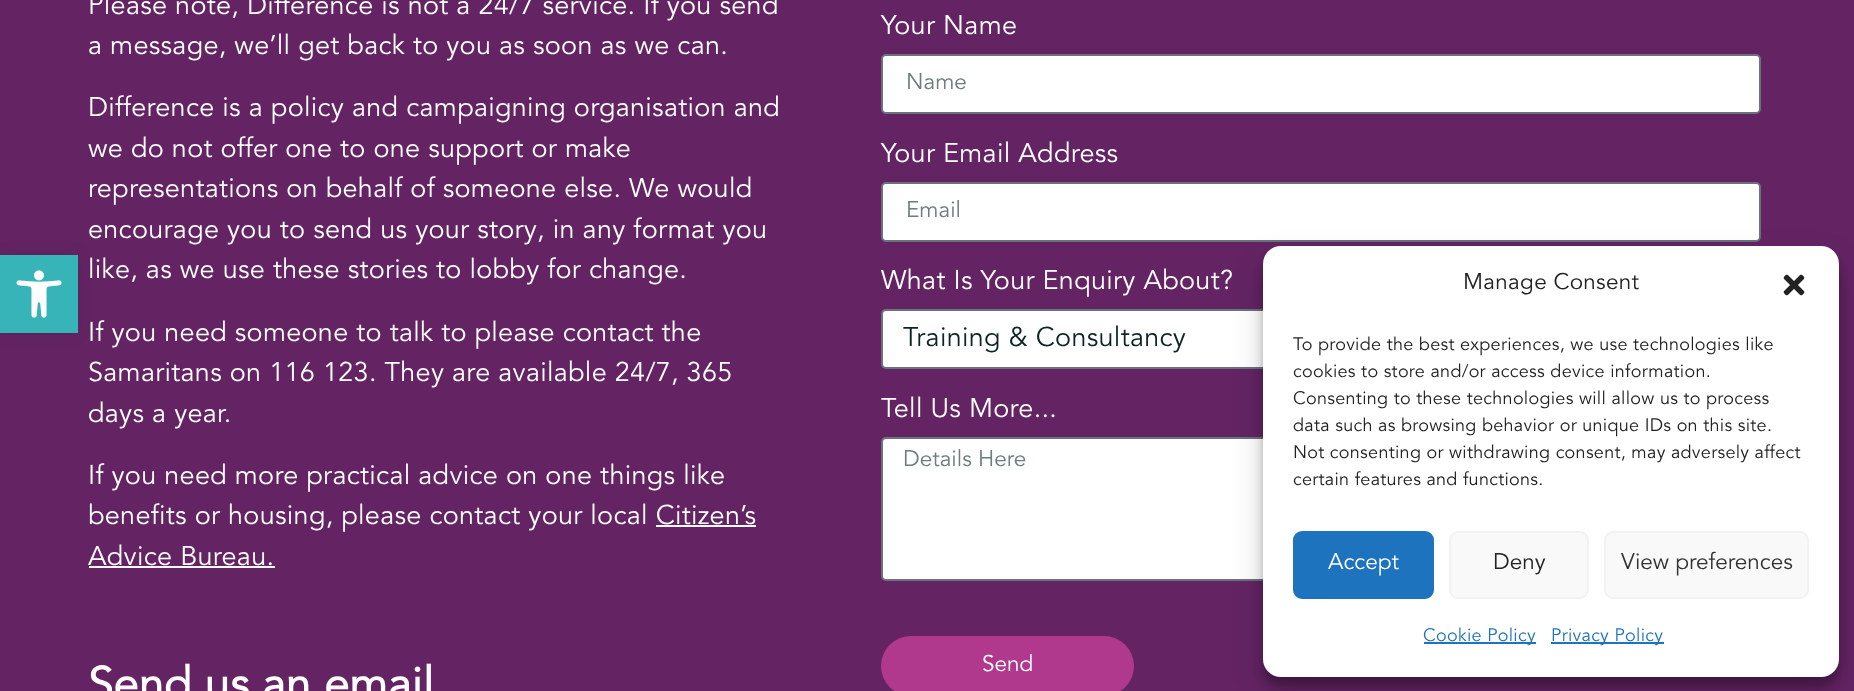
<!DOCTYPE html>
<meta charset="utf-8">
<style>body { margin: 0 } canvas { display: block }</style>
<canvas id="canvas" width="1854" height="691"></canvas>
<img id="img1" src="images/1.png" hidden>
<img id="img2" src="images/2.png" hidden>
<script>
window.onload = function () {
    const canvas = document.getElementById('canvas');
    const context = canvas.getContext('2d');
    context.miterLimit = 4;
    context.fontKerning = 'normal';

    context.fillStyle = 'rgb(100, 36, 100)';
    context.fillRect(0, 0, 1854, 691);
    context.fillStyle = 'rgba(0, 0, 0, 0.1)';
    context.filter = 'blur(7.5px)';
    context.beginPath();
    context.rect(0, 255, 78, 78);
    context.fill();
    context.filter = 'none';
    context.fillStyle = 'rgb(54, 180, 184)';
    context.fillRect(0, 255, 78, 78);
    context.drawImage(document.getElementById('img1'), 16, 270, 46, 48);
    context.fillStyle = 'rgb(255, 255, 255)';
    context.fillRect(656, 525, 100, 2);
    context.fillRect(89, 566, 186, 2);
    context.beginPath();
    context.roundRect(882, 55, 878, 58, 4);
    context.fill();
    context.strokeStyle = 'rgb(105, 114, 125)';
    context.lineWidth = 2;
    context.stroke();
    context.beginPath();
    context.roundRect(882, 183, 878, 58, 4);
    context.fill();
    context.stroke();
    context.beginPath();
    context.roundRect(882, 310, 878, 58, 4);
    context.fill();
    context.stroke();
    context.beginPath();
    context.roundRect(882, 438, 878, 142, 4);
    context.fill();
    context.stroke();
    context.fillStyle = 'rgb(177, 57, 141)';
    context.beginPath();
    context.roundRect(881, 636, 253, 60, 30);
    context.fill();
    context.fillStyle = 'rgba(0, 0, 0, 0.23)';
    context.filter = 'blur(4.5px)';
    context.beginPath();
    context.roundRect(1263, 255, 576, 431, 18);
    context.fill();
    context.filter = 'none';
    context.fillStyle = 'rgba(0, 0, 0, 0.19)';
    context.filter = 'blur(15px)';
    context.beginPath();
    context.roundRect(1263, 261, 576, 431, 18);
    context.fill();
    context.filter = 'none';
    context.fillStyle = 'rgb(255, 255, 255)';
    context.beginPath();
    context.roundRect(1263, 246, 576, 431, 18);
    context.fill();
    context.drawImage(document.getElementById('img2'), 1783, 274, 22, 22);
    context.fillStyle = 'rgb(30, 115, 190)';
    context.beginPath();
    context.roundRect(1294, 532, 139, 66, 8);
    context.fill();
    context.strokeStyle = 'rgb(30, 115, 190)';
    context.stroke();
    context.fillStyle = 'rgb(249, 249, 249)';
    context.beginPath();
    context.roundRect(1450, 532, 138, 66, 8);
    context.fill();
    context.strokeStyle = 'rgb(242, 242, 242)';
    context.stroke();
    context.beginPath();
    context.roundRect(1605, 532, 203, 66, 8);
    context.fill();
    context.stroke();
    context.fillStyle = 'rgb(30, 115, 190)';
    context.fillRect(1424, 642, 112, 2);
    context.fillRect(1551, 642, 113, 2);
    context.letterSpacing = '0.3px';
    context.font = '27px Avenir';
    context.fillStyle = 'rgb(255, 255, 255)';
    context.fillText('Please note, Difference is not a 24/7 service. If you send', 88, 14);
    context.fillText('a message, we’ll get back to you as soon as we can.', 88, 54);
    context.fillText('Difference is a policy and campaigning organisation and', 88, 116);
    context.fillText('we do not offer one to one support or make', 88, 157);
    context.fillText('representations on behalf of someone else. We would', 88, 197);
    context.fillText('encourage you to send us your story, in any format you', 88, 238);
    context.fillText('like, as we use these stories to lobby for change.', 88, 278);
    context.fillText('If you need someone to talk to please contact the', 88, 341);
    context.fillText('Samaritans on 116 123. They are available 24/7, 365', 88, 381);
    context.fillText('days a year.', 88, 422);
    context.fillText('If you need more practical advice on one things like', 88, 484);
    context.fillText('benefits or housing, please contact your local Citizen’s', 88, 524);
    context.fillText('Advice Bureau.', 88, 565);
    context.font = 'bold 45px Avenir';
    context.fillText('Send us an email', 88, 699);
    context.font = '27px Avenir';
    context.fillText('Your Name', 881, 34);
    context.letterSpacing = '0px';
    context.font = '22.5px Avenir';
    context.fillStyle = 'rgb(109, 124, 124)';
    context.fillText('Name', 906, 89);
    context.letterSpacing = '0.3px';
    context.font = '27px Avenir';
    context.fillStyle = 'rgb(255, 255, 255)';
    context.fillText('Your Email Address', 881, 162);
    context.letterSpacing = '0px';
    context.font = '22.5px Avenir';
    context.fillStyle = 'rgb(109, 124, 124)';
    context.fillText('Email', 906, 217);
    context.letterSpacing = '0.3px';
    context.font = '27px Avenir';
    context.fillStyle = 'rgb(255, 255, 255)';
    context.fillText('What Is Your Enquiry About?', 881, 289);
    context.fillStyle = 'rgb(12, 36, 36)';
    context.fillText('Training & Consultancy', 903, 346);
    context.fillStyle = 'rgb(255, 255, 255)';
    context.fillText('Tell Us More...', 881, 417);
    context.letterSpacing = '0px';
    context.font = '22.5px Avenir';
    context.fillStyle = 'rgb(109, 124, 124)';
    context.fillText('Details Here', 903, 466);
    context.fillStyle = 'rgb(255, 255, 255)';
    context.fillText('Send', 982, 671);
    context.letterSpacing = '0.3px';
    context.fillStyle = 'rgb(34, 34, 34)';
    context.fillText('Manage Consent', 1463, 289);
    context.font = '18px Avenir';
    context.fillText('To provide the best experiences, we use technologies like', 1293, 350);
    context.fillText('cookies to store and/or access device information.', 1293, 377);
    context.fillText('Consenting to these technologies will allow us to process', 1293, 404);
    context.fillText('data such as browsing behavior or unique IDs on this site.', 1293, 431);
    context.fillText('Not consenting or withdrawing consent, may adversely affect', 1293, 458);
    context.fillText('certain features and functions.', 1293, 485);
    context.letterSpacing = '0px';
    context.font = '22.5px Avenir';
    context.fillStyle = 'rgb(255, 255, 255)';
    context.fillText('Accept', 1328, 569);
    context.fillStyle = 'rgb(34, 34, 34)';
    context.fillText('Deny', 1493, 569);
    context.fillStyle = 'rgb(51, 51, 51)';
    context.fillText('View preferences', 1621, 569);
    context.letterSpacing = '0.3px';
    context.font = '18px Avenir';
    context.fillStyle = 'rgb(30, 115, 190)';
    context.fillText('Cookie Policy', 1423, 641);
    context.fillText('Privacy Policy', 1551, 641);
};
</script>
